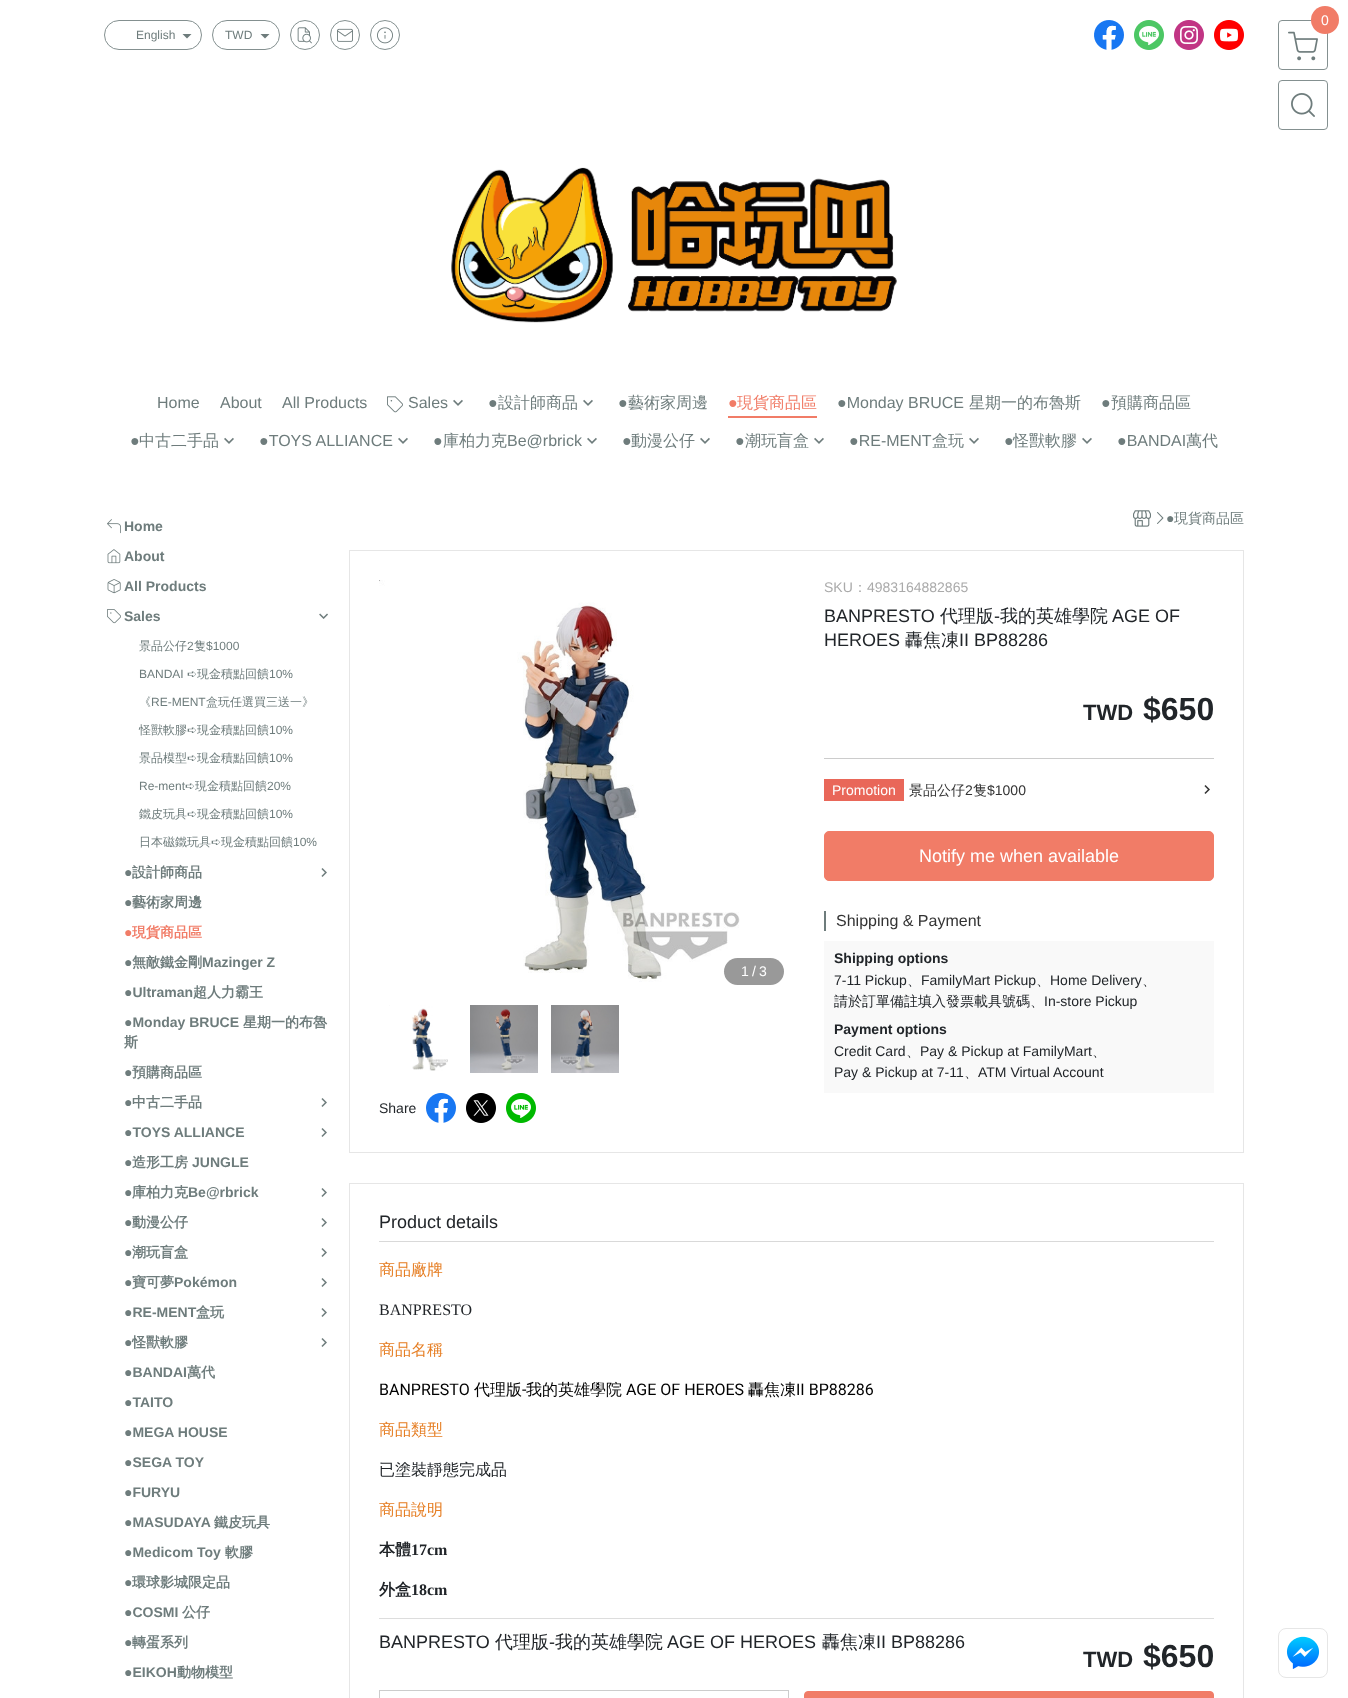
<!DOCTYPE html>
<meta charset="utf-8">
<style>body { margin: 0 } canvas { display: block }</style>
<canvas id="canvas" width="1348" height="1698"></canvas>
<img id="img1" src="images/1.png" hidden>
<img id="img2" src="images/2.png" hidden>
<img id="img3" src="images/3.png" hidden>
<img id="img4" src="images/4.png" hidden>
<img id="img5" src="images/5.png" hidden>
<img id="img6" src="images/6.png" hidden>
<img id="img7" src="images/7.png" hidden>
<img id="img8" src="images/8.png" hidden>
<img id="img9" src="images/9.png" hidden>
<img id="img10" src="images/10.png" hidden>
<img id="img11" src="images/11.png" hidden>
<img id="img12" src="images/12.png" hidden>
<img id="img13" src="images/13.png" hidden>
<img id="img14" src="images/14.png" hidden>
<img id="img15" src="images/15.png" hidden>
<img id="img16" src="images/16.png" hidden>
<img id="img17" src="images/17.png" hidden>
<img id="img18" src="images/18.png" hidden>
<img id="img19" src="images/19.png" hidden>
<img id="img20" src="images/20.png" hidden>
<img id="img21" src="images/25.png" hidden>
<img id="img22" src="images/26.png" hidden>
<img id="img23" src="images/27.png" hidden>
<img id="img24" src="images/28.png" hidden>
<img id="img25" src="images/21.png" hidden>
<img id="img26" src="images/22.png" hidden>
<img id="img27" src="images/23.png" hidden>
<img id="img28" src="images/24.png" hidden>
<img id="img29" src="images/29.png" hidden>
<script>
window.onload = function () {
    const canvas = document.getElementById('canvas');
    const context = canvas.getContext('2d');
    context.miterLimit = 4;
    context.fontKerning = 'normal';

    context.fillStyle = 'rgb(255, 255, 255)';
    context.fillRect(0, 0, 1348, 1698);
    context.beginPath();
    context.roundRect(1278.5, 20.5, 49, 49, 3.5);
    context.strokeStyle = 'rgb(132, 144, 144)';
    context.stroke();
    context.drawImage(document.getElementById('img1'), 1288, 31, 30, 30);
    context.fillStyle = 'rgb(241, 124, 103)';
    context.beginPath();
    context.arc(1325, 20, 14, 0, 2 * Math.PI);
    context.fill();
    context.beginPath();
    context.roundRect(1278.5, 80.5, 49, 49, 3.5);
    context.stroke();
    context.drawImage(document.getElementById('img2'), 1291, 93, 24, 24);
    context.beginPath();
    context.roundRect(104.5, 20.5, 97, 29, 14.5);
    context.stroke();
    context.fillStyle = 'rgb(110, 124, 124)';
    context.beginPath();
    context.moveTo(182.5, 34);
    context.lineTo(191.5, 34);
    context.lineTo(187, 38.5);
    context.closePath();
    context.fill();
    context.beginPath();
    context.roundRect(212.5, 20.5, 67, 29, 14.5);
    context.stroke();
    context.beginPath();
    context.moveTo(260.5, 34);
    context.lineTo(269.5, 34);
    context.lineTo(265, 38.5);
    context.closePath();
    context.fill();
    context.beginPath();
    context.arc(305, 35, 14.5, 0, 2 * Math.PI);
    context.stroke();
    context.drawImage(document.getElementById('img3'), 297, 27, 15, 17);
    context.beginPath();
    context.arc(345, 35, 14.5, 0, 2 * Math.PI);
    context.stroke();
    context.drawImage(document.getElementById('img4'), 337, 28, 16, 14);
    context.beginPath();
    context.arc(385, 35, 14.5, 0, 2 * Math.PI);
    context.stroke();
    context.drawImage(document.getElementById('img5'), 377, 27, 16, 17);
    context.drawImage(document.getElementById('img6'), 1094, 20, 30, 30);
    context.drawImage(document.getElementById('img7'), 1134, 20, 30, 30);
    context.drawImage(document.getElementById('img8'), 1174, 20, 30, 30);
    context.drawImage(document.getElementById('img9'), 1214, 20, 30, 30);
    context.drawImage(document.getElementById('img10'), 451, 167, 446, 156);
    context.drawImage(document.getElementById('img11'), 387, 396, 16, 17);
    context.drawImage(document.getElementById('img12'), 453, 399, 10, 7);
    context.drawImage(document.getElementById('img12'), 583, 399, 10, 7);
    context.fillStyle = 'rgb(241, 124, 103)';
    context.fillRect(728, 416, 89, 2);
    context.drawImage(document.getElementById('img12'), 224, 437, 10, 7);
    context.drawImage(document.getElementById('img12'), 398, 437, 10, 7);
    context.drawImage(document.getElementById('img12'), 587, 437, 10, 7);
    context.drawImage(document.getElementById('img12'), 700, 437, 10, 7);
    context.drawImage(document.getElementById('img12'), 814, 437, 10, 7);
    context.drawImage(document.getElementById('img12'), 969, 437, 10, 7);
    context.drawImage(document.getElementById('img12'), 1082, 437, 10, 7);
    context.drawImage(document.getElementById('img13'), 107, 519, 14, 15);
    context.drawImage(document.getElementById('img14'), 107, 549, 14, 15);
    context.drawImage(document.getElementById('img15'), 107, 579, 14, 15);
    context.drawImage(document.getElementById('img16'), 107, 609, 14, 15);
    context.drawImage(document.getElementById('img17'), 319, 613, 9, 6);
    context.drawImage(document.getElementById('img18'), 321, 868, 6, 9);
    context.drawImage(document.getElementById('img18'), 321, 1098, 6, 9);
    context.drawImage(document.getElementById('img18'), 321, 1128, 6, 9);
    context.drawImage(document.getElementById('img18'), 321, 1188, 6, 9);
    context.drawImage(document.getElementById('img18'), 321, 1218, 6, 9);
    context.drawImage(document.getElementById('img18'), 321, 1248, 6, 9);
    context.drawImage(document.getElementById('img18'), 321, 1278, 6, 9);
    context.drawImage(document.getElementById('img18'), 321, 1308, 6, 9);
    context.drawImage(document.getElementById('img18'), 321, 1338, 6, 9);
    context.drawImage(document.getElementById('img19'), 1133, 510, 18, 17);
    context.drawImage(document.getElementById('img20'), 1157, 512, 7, 12);
    context.drawImage(document.getElementById('img21'), 426, 1093, 30, 30);
    context.drawImage(document.getElementById('img22'), 466, 1093, 30, 30);
    context.drawImage(document.getElementById('img23'), 506, 1093, 30, 30);
    context.fillStyle = 'rgb(204, 204, 204)';
    context.fillRect(824, 758, 390, 1);
    context.fillStyle = 'rgb(233, 103, 89)';
    context.fillRect(824, 779, 80, 22);
    context.drawImage(document.getElementById('img24'), 1204, 785, 6, 9);
    context.fillStyle = 'rgb(110, 124, 124)';
    context.fillRect(824, 911, 2, 20);
    context.fillStyle = 'rgb(249, 249, 249)';
    context.fillRect(824, 941, 390, 152);
    context.strokeStyle = 'rgb(230, 230, 230)';
    context.strokeRect(349.5, 550.5, 894, 602);
    context.drawImage(document.getElementById('img25'), 379, 580, 361, 402);
    context.fillStyle = 'rgb(153, 153, 153)';
    context.beginPath();
    context.roundRect(724, 958, 60, 27, 13.5);
    context.fill();
    context.drawImage(document.getElementById('img26'), 389, 1005, 59, 66);
    context.drawImage(document.getElementById('img27'), 470, 1005, 68, 68);
    context.drawImage(document.getElementById('img28'), 551, 1005, 68, 68);
    context.fillStyle = 'rgb(241, 124, 103)';
    context.beginPath();
    context.roundRect(824.5, 831.5, 389, 49, 4.5);
    context.fill();
    context.strokeStyle = 'rgb(241, 124, 103)';
    context.stroke();
    context.fillStyle = 'rgb(217, 217, 217)';
    context.fillRect(379, 1241, 835, 1);
    context.fillStyle = 'rgb(221, 221, 221)';
    context.fillRect(379, 1618, 835, 1);
    context.strokeStyle = 'rgb(230, 230, 230)';
    context.strokeRect(349.5, 1183.5, 894, 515);
    context.strokeStyle = 'rgb(204, 204, 204)';
    context.strokeRect(379.5, 1690.5, 409, 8);
    context.fillStyle = 'rgb(241, 124, 103)';
    context.beginPath();
    context.roundRect(804.5, 1691.5, 409, 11, 3.5);
    context.fill();
    context.strokeStyle = 'rgb(241, 124, 103)';
    context.stroke();
    context.beginPath();
    context.roundRect(1278.5, 1628.5, 49, 49, 7.5);
    context.strokeStyle = 'rgb(230, 230, 230)';
    context.stroke();
    context.drawImage(document.getElementById('img29'), 1286, 1636, 34, 33);
    context.letterSpacing = '1px';
    context.font = '14px Liberation Sans';
    context.fillStyle = 'rgb(255, 255, 255)';
    context.fillText('0', 1321, 25);
    context.letterSpacing = '0px';
    context.font = '12px Liberation Sans';
    context.fillStyle = 'rgb(110, 124, 124)';
    context.fillText('English', 136, 39);
    context.fillText('TWD', 225, 39);
    context.font = '16px Liberation Sans';
    context.fillText('Home', 157, 408);
    context.fillText('About', 220, 408);
    context.fillText('All Products', 282, 408);
    context.fillText('Sales', 408, 408);
    context.fillText('●', 488, 408);
    context.font = '500 16px WenQuanYi Zen Hei';
    context.fillText('設計師商品', 498, 408);
    context.font = '16px Liberation Sans';
    context.fillText('●', 618, 408);
    context.font = '500 16px WenQuanYi Zen Hei';
    context.fillText('藝術家周邊', 628, 408);
    context.font = '16px Liberation Sans';
    context.fillStyle = 'rgb(241, 124, 103)';
    context.fillText('●', 728, 408);
    context.font = '500 16px WenQuanYi Zen Hei';
    context.fillText('現貨商品區', 737, 408);
    context.font = '16px Liberation Sans';
    context.fillStyle = 'rgb(110, 124, 124)';
    context.fillText('●Monday BRUCE', 837, 408);
    context.font = '500 16px WenQuanYi Zen Hei';
    context.fillText('星期一的布魯斯', 969, 408);
    context.font = '16px Liberation Sans';
    context.fillText('●', 1101, 408);
    context.font = '500 16px WenQuanYi Zen Hei';
    context.fillText('預購商品區', 1111, 408);
    context.font = '16px Liberation Sans';
    context.fillText('●', 130, 446);
    context.font = '500 16px WenQuanYi Zen Hei';
    context.fillText('中古二手品', 139, 446);
    context.font = '16px Liberation Sans';
    context.fillText('●TOYS ALLIANCE', 259, 446);
    context.fillText('●', 433, 446);
    context.font = '500 16px WenQuanYi Zen Hei';
    context.fillText('庫柏力克', 443, 446);
    context.font = '16px Liberation Sans';
    context.fillText('Be@rbrick', 507, 446);
    context.fillText('●', 622, 446);
    context.font = '500 16px WenQuanYi Zen Hei';
    context.fillText('動漫公仔', 631, 446);
    context.font = '16px Liberation Sans';
    context.fillText('●', 735, 446);
    context.font = '500 16px WenQuanYi Zen Hei';
    context.fillText('潮玩盲盒', 745, 446);
    context.font = '16px Liberation Sans';
    context.fillText('●RE-MENT', 849, 446);
    context.font = '500 16px WenQuanYi Zen Hei';
    context.fillText('盒玩', 932, 446);
    context.font = '16px Liberation Sans';
    context.fillText('●', 1004, 446);
    context.font = '500 16px WenQuanYi Zen Hei';
    context.fillText('怪獸軟膠', 1013, 446);
    context.font = '16px Liberation Sans';
    context.fillText('●BANDAI', 1117, 446);
    context.font = '500 16px WenQuanYi Zen Hei';
    context.fillText('萬代', 1186, 446);
    context.font = 'bold 14px Liberation Sans';
    context.fillText('Home', 124, 531);
    context.fillText('About', 124, 561);
    context.fillText('All Products', 124, 591);
    context.fillText('Sales', 124, 621);
    context.font = '500 12px WenQuanYi Zen Hei';
    context.fillText('景品公仔', 139, 650);
    context.font = '12px Liberation Sans';
    context.fillText('2', 187, 650);
    context.font = '500 12px WenQuanYi Zen Hei';
    context.fillText('隻', 194, 650);
    context.font = '12px Liberation Sans';
    context.fillText('$1000', 206, 650);
    context.fillText('BANDAI', 139, 678);
    context.font = '12px DejaVu Sans';
    context.fillText('➪', 187, 678);
    context.font = '500 12px WenQuanYi Zen Hei';
    context.fillText('現金積點回饋', 197, 678);
    context.font = '12px Liberation Sans';
    context.fillText('10%', 269, 678);
    context.font = '500 12px WenQuanYi Zen Hei';
    context.fillText('《', 139, 706);
    context.font = '12px Liberation Sans';
    context.fillText('RE-MENT', 151, 706);
    context.font = '500 12px WenQuanYi Zen Hei';
    context.fillText('盒玩任選買三送一》', 206, 706);
    context.fillText('怪獸軟膠', 139, 734);
    context.font = '12px DejaVu Sans';
    context.fillText('➪', 187, 734);
    context.font = '500 12px WenQuanYi Zen Hei';
    context.fillText('現金積點回饋', 197, 734);
    context.font = '12px Liberation Sans';
    context.fillText('10%', 269, 734);
    context.font = '500 12px WenQuanYi Zen Hei';
    context.fillText('景品模型', 139, 762);
    context.font = '12px DejaVu Sans';
    context.fillText('➪', 187, 762);
    context.font = '500 12px WenQuanYi Zen Hei';
    context.fillText('現金積點回饋', 197, 762);
    context.font = '12px Liberation Sans';
    context.fillText('10%', 269, 762);
    context.fillText('Re-ment', 139, 790);
    context.font = '12px DejaVu Sans';
    context.fillText('➪', 185, 790);
    context.font = '500 12px WenQuanYi Zen Hei';
    context.fillText('現金積點回饋', 195, 790);
    context.font = '12px Liberation Sans';
    context.fillText('20%', 267, 790);
    context.font = '500 12px WenQuanYi Zen Hei';
    context.fillText('鐵皮玩具', 139, 818);
    context.font = '12px DejaVu Sans';
    context.fillText('➪', 187, 818);
    context.font = '500 12px WenQuanYi Zen Hei';
    context.fillText('現金積點回饋', 197, 818);
    context.font = '12px Liberation Sans';
    context.fillText('10%', 269, 818);
    context.font = '500 12px WenQuanYi Zen Hei';
    context.fillText('日本磁鐵玩具', 139, 846);
    context.font = '12px DejaVu Sans';
    context.fillText('➪', 211, 846);
    context.font = '500 12px WenQuanYi Zen Hei';
    context.fillText('現金積點回饋', 221, 846);
    context.font = '12px Liberation Sans';
    context.fillText('10%', 293, 846);
    context.font = 'bold 14px Liberation Sans';
    context.fillText('●', 124, 877);
    context.font = 'bold 14px WenQuanYi Zen Hei';
    context.fillText('設計師商品', 132, 877);
    context.font = 'bold 14px Liberation Sans';
    context.fillText('●', 124, 907);
    context.font = 'bold 14px WenQuanYi Zen Hei';
    context.fillText('藝術家周邊', 132, 907);
    context.font = 'bold 14px Liberation Sans';
    context.fillStyle = 'rgb(241, 124, 103)';
    context.fillText('●', 124, 937);
    context.font = 'bold 14px WenQuanYi Zen Hei';
    context.fillText('現貨商品區', 132, 937);
    context.font = 'bold 14px Liberation Sans';
    context.fillStyle = 'rgb(110, 124, 124)';
    context.fillText('●', 124, 967);
    context.font = 'bold 14px WenQuanYi Zen Hei';
    context.fillText('無敵鐵金剛', 132, 967);
    context.font = 'bold 14px Liberation Sans';
    context.fillText('Mazinger Z', 202, 967);
    context.fillText('●Ultraman', 124, 997);
    context.font = 'bold 14px WenQuanYi Zen Hei';
    context.fillText('超人力霸王', 193, 997);
    context.font = 'bold 14px Liberation Sans';
    context.fillText('●Monday BRUCE', 124, 1027);
    context.font = 'bold 14px WenQuanYi Zen Hei';
    context.fillText('星期一的布魯', 243, 1027);
    context.fillText('斯', 124, 1047);
    context.font = 'bold 14px Liberation Sans';
    context.fillText('●', 124, 1077);
    context.font = 'bold 14px WenQuanYi Zen Hei';
    context.fillText('預購商品區', 132, 1077);
    context.font = 'bold 14px Liberation Sans';
    context.fillText('●', 124, 1107);
    context.font = 'bold 14px WenQuanYi Zen Hei';
    context.fillText('中古二手品', 132, 1107);
    context.font = 'bold 14px Liberation Sans';
    context.fillText('●TOYS ALLIANCE', 124, 1137);
    context.fillText('●', 124, 1167);
    context.font = 'bold 14px WenQuanYi Zen Hei';
    context.fillText('造形工房', 132, 1167);
    context.font = 'bold 14px Liberation Sans';
    context.fillText('JUNGLE', 192, 1167);
    context.fillText('●', 124, 1197);
    context.font = 'bold 14px WenQuanYi Zen Hei';
    context.fillText('庫柏力克', 132, 1197);
    context.font = 'bold 14px Liberation Sans';
    context.fillText('Be@rbrick', 188, 1197);
    context.fillText('●', 124, 1227);
    context.font = 'bold 14px WenQuanYi Zen Hei';
    context.fillText('動漫公仔', 132, 1227);
    context.font = 'bold 14px Liberation Sans';
    context.fillText('●', 124, 1257);
    context.font = 'bold 14px WenQuanYi Zen Hei';
    context.fillText('潮玩盲盒', 132, 1257);
    context.font = 'bold 14px Liberation Sans';
    context.fillText('●', 124, 1287);
    context.font = 'bold 14px WenQuanYi Zen Hei';
    context.fillText('寶可夢', 132, 1287);
    context.font = 'bold 14px Liberation Sans';
    context.fillText('Pokémon', 174, 1287);
    context.fillText('●RE-MENT', 124, 1317);
    context.font = 'bold 14px WenQuanYi Zen Hei';
    context.fillText('盒玩', 196, 1317);
    context.font = 'bold 14px Liberation Sans';
    context.fillText('●', 124, 1347);
    context.font = 'bold 14px WenQuanYi Zen Hei';
    context.fillText('怪獸軟膠', 132, 1347);
    context.font = 'bold 14px Liberation Sans';
    context.fillText('●BANDAI', 124, 1377);
    context.font = 'bold 14px WenQuanYi Zen Hei';
    context.fillText('萬代', 187, 1377);
    context.font = 'bold 14px Liberation Sans';
    context.fillText('●TAITO', 124, 1407);
    context.fillText('●MEGA HOUSE', 124, 1437);
    context.fillText('●SEGA TOY', 124, 1467);
    context.fillText('●FURYU', 124, 1497);
    context.fillText('●MASUDAYA', 124, 1527);
    context.font = 'bold 14px WenQuanYi Zen Hei';
    context.fillText('鐵皮玩具', 214, 1527);
    context.font = 'bold 14px Liberation Sans';
    context.fillText('●Medicom Toy', 124, 1557);
    context.font = 'bold 14px WenQuanYi Zen Hei';
    context.fillText('軟膠', 225, 1557);
    context.font = 'bold 14px Liberation Sans';
    context.fillText('●', 124, 1587);
    context.font = 'bold 14px WenQuanYi Zen Hei';
    context.fillText('環球影城限定品', 132, 1587);
    context.font = 'bold 14px Liberation Sans';
    context.fillText('●COSMI', 124, 1617);
    context.font = 'bold 14px WenQuanYi Zen Hei';
    context.fillText('公仔', 182, 1617);
    context.font = 'bold 14px Liberation Sans';
    context.fillText('●', 124, 1647);
    context.font = 'bold 14px WenQuanYi Zen Hei';
    context.fillText('轉蛋系列', 132, 1647);
    context.font = 'bold 14px Liberation Sans';
    context.fillText('●EIKOH', 124, 1677);
    context.font = 'bold 14px WenQuanYi Zen Hei';
    context.fillText('動物模型', 177, 1677);
    context.font = '14px Liberation Sans';
    context.fillText('●', 1166, 523);
    context.save();
    context.beginPath();
    context.rect(1166, 511, 78, 14);
    context.clip();
    context.font = '500 14px WenQuanYi Zen Hei';
    context.fillText('現貨商品區', 1174, 523);
    context.restore();
    context.fillStyle = 'rgb(255, 255, 255)';
    context.fillText('1', 741, 976);
    context.fillText('/', 752, 976);
    context.fillText('3', 759, 976);
    context.fillStyle = 'rgb(33, 37, 41)';
    context.fillText('Share', 379, 1113);
    context.fillStyle = 'rgb(170, 170, 170)';
    context.fillText('SKU', 824, 592);
    context.font = '500 14px WenQuanYi Zen Hei';
    context.fillText('：', 853, 592);
    context.font = '14px Liberation Sans';
    context.fillText('4983164882865', 867, 592);
    context.font = '18px Liberation Sans';
    context.fillStyle = 'rgb(33, 37, 41)';
    context.fillText('BANPRESTO', 824, 622);
    context.font = '500 18px WenQuanYi Zen Hei';
    context.fillText('代理版', 940, 622);
    context.font = '18px Liberation Sans';
    context.fillText('-', 994, 622);
    context.font = '500 18px WenQuanYi Zen Hei';
    context.fillText('我的英雄學院', 1000, 622);
    context.font = '18px Liberation Sans';
    context.fillText('AGE OF', 1112, 622);
    context.fillText('HEROES', 824, 646);
    context.font = '500 18px WenQuanYi Zen Hei';
    context.fillText('轟焦凍', 905, 646);
    context.font = '18px Liberation Sans';
    context.fillText('II BP88286', 959, 646);
    context.font = 'bold 22px Liberation Sans';
    context.fillText('TWD', 1083, 720);
    context.font = 'bold 32px Liberation Sans';
    context.fillText('$650', 1143, 720);
    context.font = '14px Liberation Sans';
    context.fillStyle = 'rgb(255, 255, 255)';
    context.fillText('Promotion', 832, 795);
    context.font = '500 14px WenQuanYi Zen Hei';
    context.fillStyle = 'rgb(51, 51, 51)';
    context.fillText('景品公仔', 909, 795);
    context.font = '14px Liberation Sans';
    context.fillText('2', 965, 795);
    context.font = '500 14px WenQuanYi Zen Hei';
    context.fillText('隻', 973, 795);
    context.font = '14px Liberation Sans';
    context.fillText('$1000', 987, 795);
    context.font = '18px Liberation Sans';
    context.fillStyle = 'rgb(255, 255, 255)';
    context.fillText('Notify me when available', 919, 862);
    context.font = '16px Liberation Sans';
    context.fillStyle = 'rgb(51, 51, 51)';
    context.fillText('Shipping & Payment', 836, 926);
    context.font = 'bold 14px Liberation Sans';
    context.fillStyle = 'rgb(33, 37, 41)';
    context.fillText('Shipping options', 834, 963);
    context.font = '14px Liberation Sans';
    context.fillText('7-11 Pickup', 834, 985);
    context.font = '500 14px WenQuanYi Zen Hei';
    context.fillText('、', 907, 985);
    context.font = '14px Liberation Sans';
    context.fillText('FamilyMart Pickup', 921, 985);
    context.font = '500 14px WenQuanYi Zen Hei';
    context.fillText('、', 1036, 985);
    context.font = '14px Liberation Sans';
    context.fillText('Home Delivery', 1050, 985);
    context.font = '500 14px WenQuanYi Zen Hei';
    context.fillText('、', 1142, 985);
    context.fillText('請於訂單備註填入發票載具號碼、', 834, 1006);
    context.font = '14px Liberation Sans';
    context.fillText('In-store Pickup', 1044, 1006);
    context.font = 'bold 14px Liberation Sans';
    context.fillText('Payment options', 834, 1034);
    context.font = '14px Liberation Sans';
    context.fillText('Credit Card', 834, 1056);
    context.font = '500 14px WenQuanYi Zen Hei';
    context.fillText('、', 906, 1056);
    context.font = '14px Liberation Sans';
    context.fillText('Pay & Pickup at FamilyMart', 920, 1056);
    context.font = '500 14px WenQuanYi Zen Hei';
    context.fillText('、', 1092, 1056);
    context.font = '14px Liberation Sans';
    context.fillText('Pay & Pickup at 7-11', 834, 1077);
    context.font = '500 14px WenQuanYi Zen Hei';
    context.fillText('、', 964, 1077);
    context.font = '14px Liberation Sans';
    context.fillText('ATM Virtual Account', 978, 1077);
    context.font = '18px Liberation Sans';
    context.fillText('Product details', 379, 1228);
    context.font = '500 16px WenQuanYi Zen Hei';
    context.fillStyle = 'rgb(230, 126, 35)';
    context.fillText('商品廠牌', 379, 1275);
    context.font = '16px Liberation Serif';
    context.fillStyle = 'rgb(33, 37, 41)';
    context.fillText('BANPRESTO', 379, 1315);
    context.font = '500 16px WenQuanYi Zen Hei';
    context.fillStyle = 'rgb(230, 126, 35)';
    context.fillText('商品名稱', 379, 1355);
    context.font = '16px Roboto';
    context.fillStyle = 'rgb(0, 0, 0)';
    context.fillText('BANPRESTO', 379, 1395);
    context.font = '500 16px WenQuanYi Zen Hei';
    context.fillText('代理版', 474, 1395);
    context.font = '16px Roboto';
    context.fillText('-', 522, 1395);
    context.font = '500 16px WenQuanYi Zen Hei';
    context.fillText('我的英雄學院', 526, 1395);
    context.font = '16px Roboto';
    context.fillText('AGE OF HEROES', 626, 1395);
    context.font = '500 16px WenQuanYi Zen Hei';
    context.fillText('轟焦凍', 748, 1395);
    context.font = '16px Roboto';
    context.fillText('II BP88286', 796, 1395);
    context.font = '500 16px WenQuanYi Zen Hei';
    context.fillStyle = 'rgb(230, 126, 35)';
    context.fillText('商品類型', 379, 1435);
    context.fillStyle = 'rgb(33, 37, 41)';
    context.fillText('已塗裝靜態完成品', 379, 1475);
    context.fillStyle = 'rgb(230, 126, 35)';
    context.fillText('商品說明', 379, 1515);
    context.font = 'bold 16px WenQuanYi Zen Hei';
    context.fillStyle = 'rgb(33, 37, 41)';
    context.fillText('本體', 379, 1555);
    context.font = 'bold 16px Liberation Serif';
    context.fillText('17cm', 411, 1555);
    context.font = 'bold 16px WenQuanYi Zen Hei';
    context.fillText('外盒', 379, 1595);
    context.font = 'bold 16px Liberation Serif';
    context.fillText('18cm', 411, 1595);
    context.font = '18px Liberation Sans';
    context.fillText('BANPRESTO', 379, 1648);
    context.font = '500 18px WenQuanYi Zen Hei';
    context.fillText('代理版', 495, 1648);
    context.font = '18px Liberation Sans';
    context.fillText('-', 549, 1648);
    context.font = '500 18px WenQuanYi Zen Hei';
    context.fillText('我的英雄學院', 555, 1648);
    context.font = '18px Liberation Sans';
    context.fillText('AGE OF HEROES', 667, 1648);
    context.font = '500 18px WenQuanYi Zen Hei';
    context.fillText('轟焦凍', 822, 1648);
    context.font = '18px Liberation Sans';
    context.fillText('II BP88286', 876, 1648);
    context.font = 'bold 22px Liberation Sans';
    context.fillText('TWD', 1083, 1667);
    context.font = 'bold 32px Liberation Sans';
    context.fillText('$650', 1143, 1667);
};
</script>
